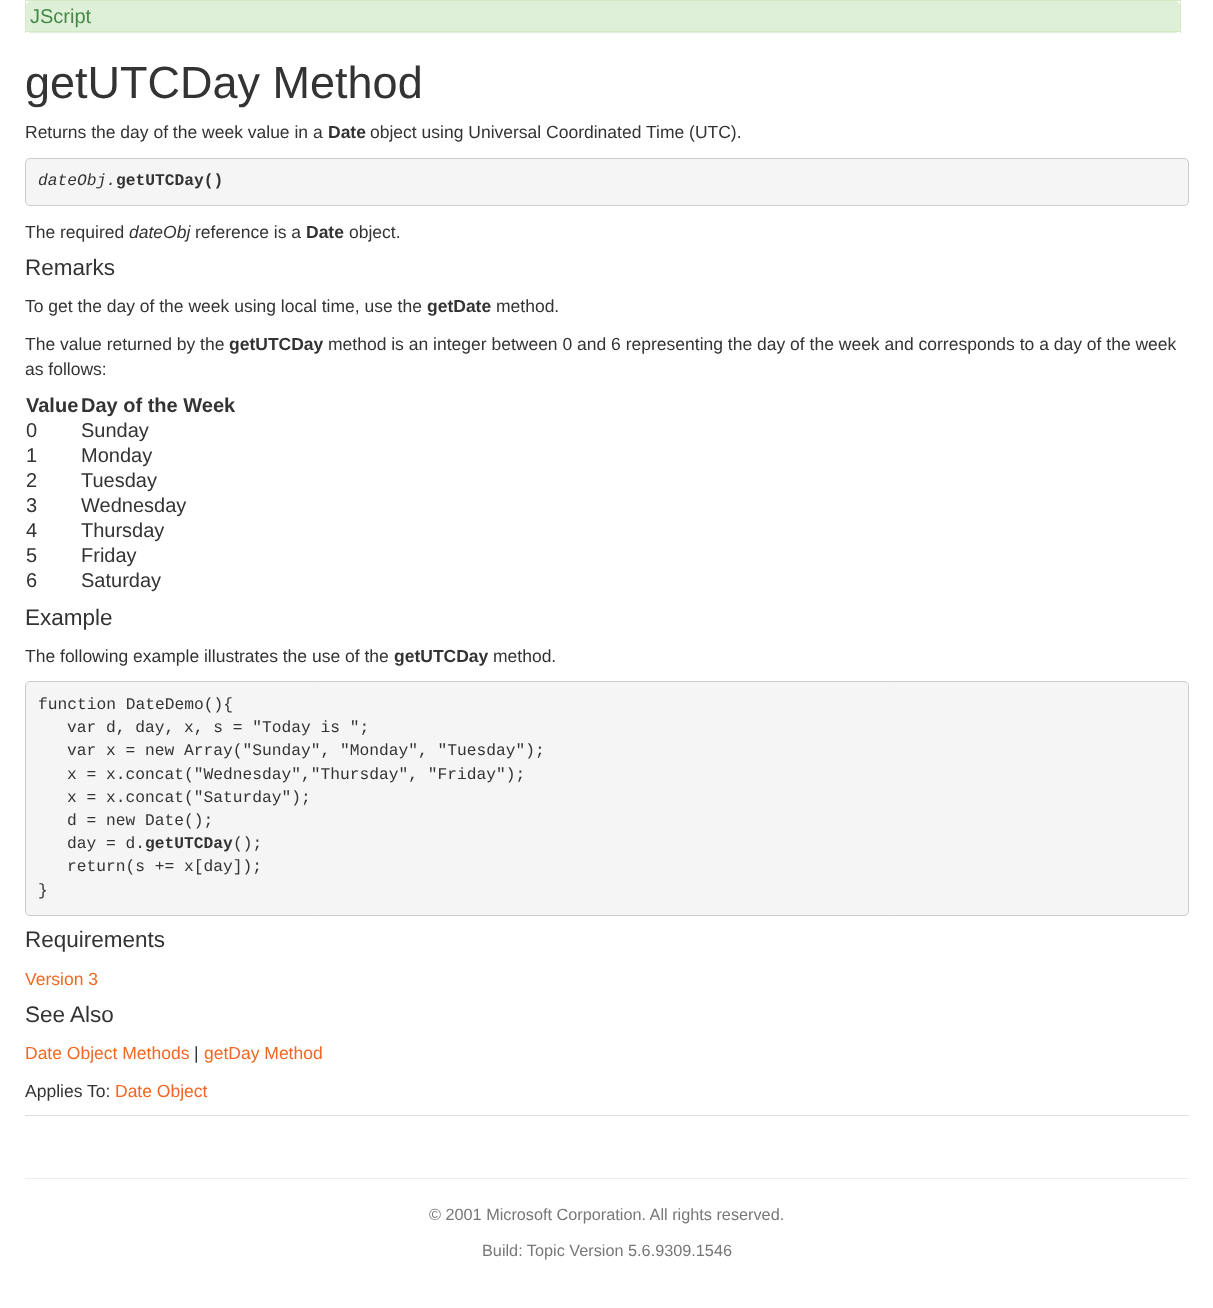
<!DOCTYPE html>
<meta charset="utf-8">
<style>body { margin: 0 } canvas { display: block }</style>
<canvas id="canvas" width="1213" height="1308"></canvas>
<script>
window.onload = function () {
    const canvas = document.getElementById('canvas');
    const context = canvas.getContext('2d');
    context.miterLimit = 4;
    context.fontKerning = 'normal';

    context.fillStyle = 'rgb(255, 255, 255)';
    context.fillRect(0, 0, 1213, 1308);
    context.fillStyle = 'rgb(223, 240, 216)';
    context.beginPath();
    context.roundRect(26, 1, 1154, 32, 5);
    context.fill();
    context.fillStyle = 'rgb(214, 233, 198)';
    context.fillRect(25, 0, 1156, 1);
    context.fillRect(1180, 0, 1, 33);
    context.fillRect(25, 31, 1156, 1);
    context.fillRect(25, 0, 1, 33);
    context.fillStyle = 'rgb(245, 245, 245)';
    context.beginPath();
    context.roundRect(25.5, 158.5, 1163, 47, 4.5);
    context.fill();
    context.strokeStyle = 'rgb(204, 204, 204)';
    context.stroke();
    context.beginPath();
    context.roundRect(25.5, 681.5, 1163, 234, 4.5);
    context.fill();
    context.stroke();
    context.fillStyle = 'rgb(221, 221, 221)';
    context.fillRect(25, 1115, 1164, 1);
    context.fillStyle = 'rgb(238, 238, 238)';
    context.fillRect(25, 1178, 1164, 1);
    context.font = '20px Liberation Sans';
    context.fillStyle = 'rgb(70, 136, 71)';
    context.fillText('JScript', 30, 23);
    context.font = '45px Liberation Sans';
    context.fillStyle = 'rgb(51, 51, 51)';
    context.fillText('getUTCDay Method', 25, 98);
    context.font = '17.5px Liberation Sans';
    context.fillText('Returns the day of the week value in a', 25, 138);
    context.font = 'bold 17.5px Liberation Sans';
    context.fillText('Date', 328, 138);
    context.font = '17.5px Liberation Sans';
    context.fillText('object using Universal Coordinated Time (UTC).', 370, 138);
    context.font = 'italic 16.25px Liberation Mono';
    context.fillText('dateObj.', 38, 185);
    context.font = 'bold 16.25px Liberation Mono';
    context.fillText('getUTCDay()', 116, 185);
    context.font = '17.5px Liberation Sans';
    context.fillText('The required', 25, 238);
    context.font = 'italic 17.5px Liberation Sans';
    context.fillText('dateObj', 129, 238);
    context.font = '17.5px Liberation Sans';
    context.fillText('reference is a', 195, 238);
    context.font = 'bold 17.5px Liberation Sans';
    context.fillText('Date', 306, 238);
    context.font = '17.5px Liberation Sans';
    context.fillText('object.', 349, 238);
    context.font = '22.5px Liberation Sans';
    context.fillText('Remarks', 25, 275);
    context.font = '17.5px Liberation Sans';
    context.fillText('To get the day of the week using local time, use the', 25, 312);
    context.font = 'bold 17.5px Liberation Sans';
    context.fillText('getDate', 427, 312);
    context.font = '17.5px Liberation Sans';
    context.fillText('method.', 496, 312);
    context.fillText('The value returned by the', 25, 350);
    context.font = 'bold 17.5px Liberation Sans';
    context.fillText('getUTCDay', 229, 350);
    context.font = '17.5px Liberation Sans';
    context.fillText('method is an integer between 0 and 6 representing the day of the week and corresponds to a day of the week', 328, 350);
    context.fillText('as follows:', 25, 375);
    context.font = 'bold 20px Liberation Sans';
    context.fillText('Value', 26, 412);
    context.fillText('Day of the Week', 81, 412);
    context.font = '20px Liberation Sans';
    context.fillText('0', 26, 437);
    context.fillText('Sunday', 81, 437);
    context.fillText('1', 26, 462);
    context.fillText('Monday', 81, 462);
    context.fillText('2', 26, 487);
    context.fillText('Tuesday', 81, 487);
    context.fillText('3', 26, 512);
    context.fillText('Wednesday', 81, 512);
    context.fillText('4', 26, 537);
    context.fillText('Thursday', 81, 537);
    context.fillText('5', 26, 562);
    context.fillText('Friday', 81, 562);
    context.fillText('6', 26, 587);
    context.fillText('Saturday', 81, 587);
    context.font = '22.5px Liberation Sans';
    context.fillText('Example', 25, 625);
    context.font = '17.5px Liberation Sans';
    context.fillText('The following example illustrates the use of the', 25, 662);
    context.font = 'bold 17.5px Liberation Sans';
    context.fillText('getUTCDay', 394, 662);
    context.font = '17.5px Liberation Sans';
    context.fillText('method.', 493, 662);
    context.font = '16.25px Liberation Mono';
    context.fillText('function DateDemo(){', 38, 709);
    context.fillText('var d, day, x, s = "Today is ";', 67, 732);
    context.fillText('var x = new Array("Sunday", "Monday", "Tuesday");', 67, 755);
    context.fillText('x = x.concat("Wednesday","Thursday", "Friday");', 67, 779);
    context.fillText('x = x.concat("Saturday");', 67, 802);
    context.fillText('d = new Date();', 67, 825);
    context.fillText('day = d.', 67, 848);
    context.font = 'bold 16.25px Liberation Mono';
    context.fillText('getUTCDay', 145, 848);
    context.font = '16.25px Liberation Mono';
    context.fillText('();', 233, 848);
    context.fillText('return(s += x[day]);', 67, 871);
    context.fillText('}', 38, 895);
    context.font = '22.5px Liberation Sans';
    context.fillText('Requirements', 25, 947);
    context.font = '17.5px Liberation Sans';
    context.fillStyle = 'rgb(242, 103, 34)';
    context.fillText('Version 3', 25, 985);
    context.font = '22.5px Liberation Sans';
    context.fillStyle = 'rgb(51, 51, 51)';
    context.fillText('See Also', 25, 1022);
    context.font = '17.5px Liberation Sans';
    context.fillStyle = 'rgb(242, 103, 34)';
    context.fillText('Date Object Methods', 25, 1059);
    context.fillStyle = 'rgb(51, 51, 51)';
    context.fillText('|', 194, 1059);
    context.fillStyle = 'rgb(242, 103, 34)';
    context.fillText('getDay Method', 204, 1059);
    context.fillStyle = 'rgb(51, 51, 51)';
    context.fillText('Applies To:', 25, 1097);
    context.fillStyle = 'rgb(242, 103, 34)';
    context.fillText('Date Object', 115, 1097);
    context.font = '16.25px Liberation Sans';
    context.fillStyle = 'rgb(119, 119, 119)';
    context.fillText('© 2001 Microsoft Corporation. All rights reserved.', 429, 1220);
    context.fillText('Build: Topic Version 5.6.9309.1546', 482, 1256);
};
</script>
